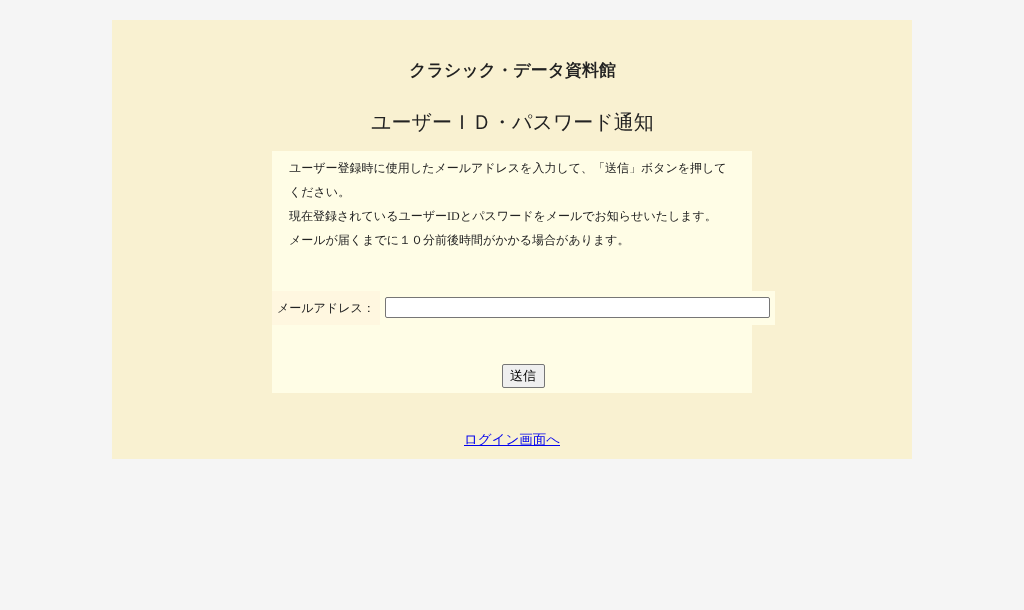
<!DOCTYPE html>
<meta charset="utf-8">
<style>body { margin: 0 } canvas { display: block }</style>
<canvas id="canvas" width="1024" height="610"></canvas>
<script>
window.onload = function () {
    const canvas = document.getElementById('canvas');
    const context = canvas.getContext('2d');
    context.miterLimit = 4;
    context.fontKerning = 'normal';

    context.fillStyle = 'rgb(245, 245, 245)';
    context.fillRect(0, 0, 1024, 610);
    context.fillStyle = 'rgb(249, 241, 209)';
    context.fillRect(112, 20, 800, 439);
    context.fillStyle = 'rgb(255, 253, 230)';
    context.fillRect(272, 151, 480, 242);
    context.fillStyle = 'rgb(255, 247, 224)';
    context.fillRect(272, 291, 108, 34);
    context.fillStyle = 'rgb(255, 253, 230)';
    context.fillRect(752, 291, 23, 34);
    context.fillStyle = 'rgb(255, 255, 255)';
    context.beginPath();
    context.roundRect(385.5, 297.5, 384, 20, 1.5);
    context.fill();
    context.strokeStyle = 'rgb(118, 118, 118)';
    context.stroke();
    context.fillStyle = 'rgb(239, 239, 239)';
    context.beginPath();
    context.roundRect(502.5, 364.5, 42, 23, 1.5);
    context.fill();
    context.stroke();
    context.fillStyle = 'rgb(0, 0, 238)';
    context.fillRect(464, 445, 96, 1);
    context.font = 'bold 17px WenQuanYi Zen Hei';
    context.fillStyle = 'rgb(34, 34, 34)';
    context.fillText('クラシック・データ資料館', 409, 76);
    context.font = '500 20px WenQuanYi Zen Hei';
    context.fillText('ユーザーＩＤ・パスワード通知', 371, 129);
    context.font = '500 12px WenQuanYi Zen Hei';
    context.fillText('ユーザー登録時に使用したメールアドレスを入力して、「送信」ボタンを押して', 289, 172);
    context.fillText('ください。', 289, 196);
    context.fillText('現在登録されているユーザー', 289, 220);
    context.font = '12px Liberation Serif';
    context.fillText('ID', 447, 220);
    context.font = '500 12px WenQuanYi Zen Hei';
    context.fillText('とパスワードをメールでお知らせいたします。', 460, 220);
    context.fillText('メールが届くまでに１０分前後時間がかかる場合があります。', 289, 244);
    context.fillText('メールアドレス：', 277, 312);
    context.font = '500 13px WenQuanYi Zen Hei';
    context.fillStyle = 'rgb(0, 0, 0)';
    context.fillText('送信', 510, 380);
    context.font = '500 13.5px WenQuanYi Zen Hei';
    context.fillStyle = 'rgb(0, 0, 238)';
    context.fillText('ログイン画面へ', 464, 444);
};
</script>
